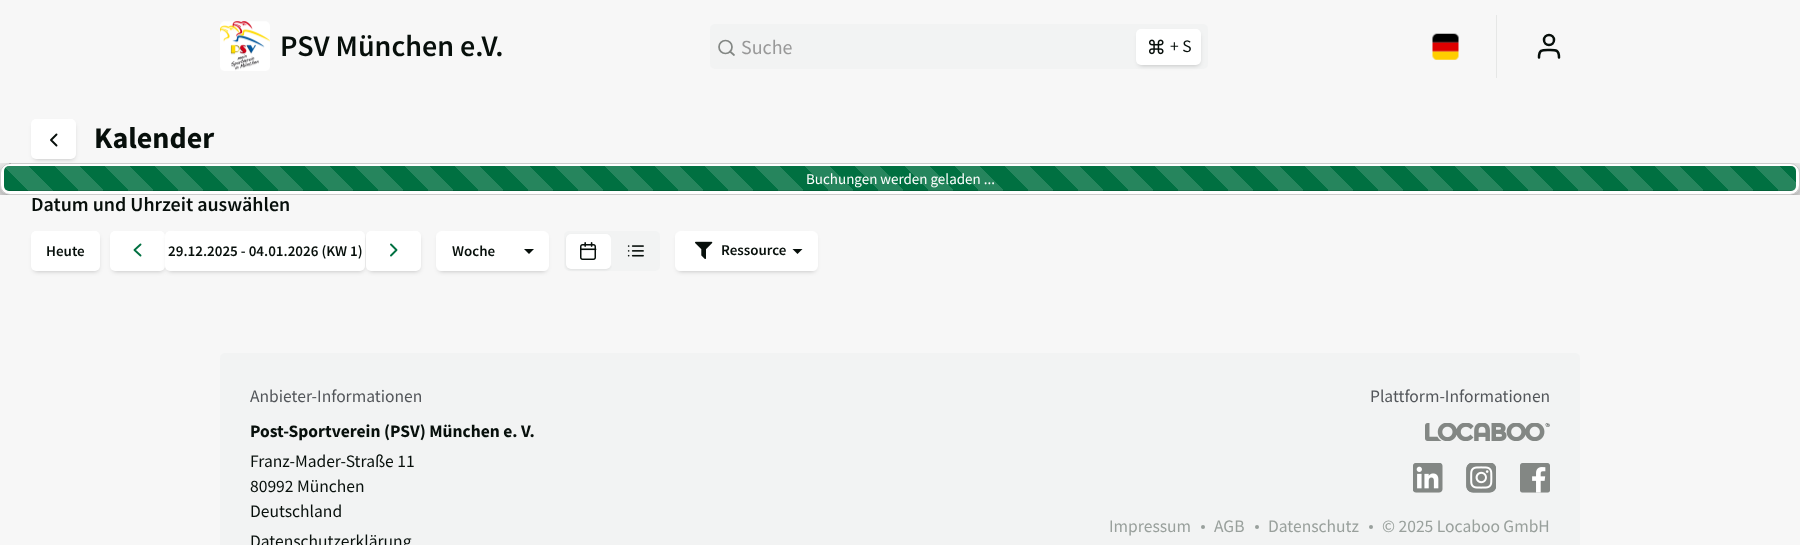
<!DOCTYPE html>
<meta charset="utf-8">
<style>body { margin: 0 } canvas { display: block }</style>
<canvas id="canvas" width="1800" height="545"></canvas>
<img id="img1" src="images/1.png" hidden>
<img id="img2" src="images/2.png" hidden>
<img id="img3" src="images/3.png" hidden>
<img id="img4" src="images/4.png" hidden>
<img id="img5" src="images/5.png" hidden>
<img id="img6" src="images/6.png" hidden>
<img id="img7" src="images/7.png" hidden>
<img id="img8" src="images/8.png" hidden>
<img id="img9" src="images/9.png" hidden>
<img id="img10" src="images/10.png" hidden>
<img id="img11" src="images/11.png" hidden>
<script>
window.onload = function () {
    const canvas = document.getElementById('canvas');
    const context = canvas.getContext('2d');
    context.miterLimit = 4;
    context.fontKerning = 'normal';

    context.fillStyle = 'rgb(247, 247, 247)';
    context.fillRect(0, 0, 1800, 545);
    context.drawImage(document.getElementById('img1'), 220, 21, 50, 50);
    context.fillStyle = 'rgb(242, 243, 243)';
    context.beginPath();
    context.roundRect(710, 24, 498, 45, 5);
    context.fill();
    context.beginPath();
    context.arc(725.5, 47, 6.5, 0, 2 * Math.PI);
    context.strokeStyle = 'rgb(131, 135, 132)';
    context.lineWidth = 1.7;
    context.stroke();
    context.beginPath();
    context.moveTo(734, 55);
    context.lineTo(730, 51.5);
    context.lineCap = 'round';
    context.lineJoin = 'round';
    context.stroke();
    context.fillStyle = 'rgba(0, 0, 0, 0.25)';
    context.filter = 'blur(2.5px)';
    context.beginPath();
    context.roundRect(1139, 34, 60, 31, 2.5);
    context.fill();
    context.filter = 'none';
    context.fillStyle = 'rgb(255, 255, 255)';
    context.beginPath();
    context.roundRect(1136, 29, 65, 36, 5);
    context.fill();
    context.drawImage(document.getElementById('img2'), 1149, 39, 15, 16);
    context.drawImage(document.getElementById('img3'), 1432, 33, 27, 27);
    context.fillStyle = 'rgb(230, 231, 230)';
    context.fillRect(1496, 15, 1, 63);
    context.beginPath();
    context.moveTo(1559, 57.5);
    context.bezierCurveTo(1559, 49.5, 1555.5, 50, 1549, 50);
    context.bezierCurveTo(1542, 50, 1539, 49.5, 1539, 57.5);
    context.strokeStyle = 'rgb(7, 15, 11)';
    context.lineWidth = 2.5;
    context.stroke();
    context.beginPath();
    context.arc(1549, 40, 5, 0, 2 * Math.PI);
    context.stroke();
    context.fillStyle = 'rgba(0, 0, 0, 0.25)';
    context.filter = 'blur(2.5px)';
    context.beginPath();
    context.roundRect(34, 124, 40, 35, 2.5);
    context.fill();
    context.filter = 'none';
    context.fillStyle = 'rgb(255, 255, 255)';
    context.beginPath();
    context.roundRect(31, 119, 45, 40, 5);
    context.fill();
    context.beginPath();
    context.moveTo(56.5, 145.5);
    context.lineTo(51, 140);
    context.lineTo(56.5, 134.5);
    context.lineWidth = 1.9;
    context.stroke();
    context.fillStyle = 'rgba(0, 0, 0, 0.25)';
    context.filter = 'blur(2.5px)';
    context.beginPath();
    context.roundRect(34, 236, 64, 35, 2.5);
    context.fill();
    context.filter = 'none';
    context.fillStyle = 'rgb(255, 255, 255)';
    context.beginPath();
    context.roundRect(31, 231, 69, 40, 5);
    context.fill();
    context.fillStyle = 'rgba(0, 0, 0, 0.25)';
    context.filter = 'blur(2.5px)';
    context.beginPath();
    context.roundRect(113, 236, 50, 35, 2.5);
    context.fill();
    context.filter = 'none';
    context.fillStyle = 'rgb(255, 255, 255)';
    context.beginPath();
    context.roundRect(110, 231, 55, 40, 5);
    context.fill();
    context.beginPath();
    context.moveTo(140.5, 255.5);
    context.lineTo(134.5, 250);
    context.lineTo(140.5, 244.5);
    context.strokeStyle = 'rgb(0, 112, 65)';
    context.stroke();
    context.fillStyle = 'rgba(0, 0, 0, 0.25)';
    context.filter = 'blur(2.5px)';
    context.beginPath();
    context.roundRect(168, 236, 195, 35, 2.5);
    context.fill();
    context.filter = 'none';
    context.fillStyle = 'rgb(255, 255, 255)';
    context.beginPath();
    context.roundRect(165, 231, 200, 40, 5);
    context.fill();
    context.fillStyle = 'rgba(0, 0, 0, 0.25)';
    context.filter = 'blur(2.5px)';
    context.beginPath();
    context.roundRect(369, 236, 50, 35, 2.5);
    context.fill();
    context.filter = 'none';
    context.fillStyle = 'rgb(255, 255, 255)';
    context.beginPath();
    context.roundRect(366, 231, 55, 40, 5);
    context.fill();
    context.beginPath();
    context.moveTo(391, 255.5);
    context.lineTo(396.5, 250);
    context.lineTo(391, 244.5);
    context.stroke();
    context.beginPath();
    context.roundRect(436, 231, 113, 40, 6);
    context.fill();
    context.save();
    context.beginPath();
    context.moveTo(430, 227);
    context.lineTo(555, 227);
    context.lineTo(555, 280);
    context.lineTo(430, 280);
    context.closePath();
    context.moveTo(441, 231);
    context.lineTo(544, 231);
    context.bezierCurveTo(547, 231, 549, 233, 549, 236);
    context.lineTo(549, 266);
    context.bezierCurveTo(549, 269, 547, 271, 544, 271);
    context.lineTo(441, 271);
    context.bezierCurveTo(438, 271, 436, 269, 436, 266);
    context.lineTo(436, 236);
    context.bezierCurveTo(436, 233, 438, 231, 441, 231);
    context.closePath();
    context.clip('evenodd');
    context.fillStyle = 'rgba(0, 0, 0, 0.25)';
    context.filter = 'blur(2.5px)';
    context.beginPath();
    context.roundRect(439, 236, 107, 35, 2.5);
    context.fill();
    context.filter = 'none';
    context.restore();
    context.fillStyle = 'rgb(7, 15, 11)';
    context.beginPath();
    context.moveTo(524, 249);
    context.lineTo(534, 249);
    context.lineTo(529, 254);
    context.closePath();
    context.fill();
    context.fillStyle = 'rgb(242, 243, 243)';
    context.beginPath();
    context.roundRect(564, 231, 96, 40, 5);
    context.fill();
    context.fillStyle = 'rgba(0, 0, 0, 0.08)';
    context.filter = 'blur(1px)';
    context.beginPath();
    context.roundRect(566, 235, 45, 35, 5);
    context.fill();
    context.filter = 'none';
    context.fillStyle = 'rgb(255, 255, 255)';
    context.beginPath();
    context.roundRect(566, 234, 45, 35, 5);
    context.fill();
    context.drawImage(document.getElementById('img4'), 580, 242, 17, 18);
    context.fillStyle = 'rgb(242, 243, 243)';
    context.beginPath();
    context.roundRect(611, 234, 47, 35, 5);
    context.fill();
    context.drawImage(document.getElementById('img5'), 627, 245, 17, 12);
    context.fillStyle = 'rgb(255, 255, 255)';
    context.beginPath();
    context.roundRect(675, 231, 143, 40, 6);
    context.fill();
    context.save();
    context.beginPath();
    context.moveTo(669, 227);
    context.lineTo(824, 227);
    context.lineTo(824, 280);
    context.lineTo(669, 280);
    context.closePath();
    context.moveTo(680, 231);
    context.lineTo(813, 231);
    context.bezierCurveTo(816, 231, 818, 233, 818, 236);
    context.lineTo(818, 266);
    context.bezierCurveTo(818, 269, 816, 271, 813, 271);
    context.lineTo(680, 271);
    context.bezierCurveTo(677, 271, 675, 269, 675, 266);
    context.lineTo(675, 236);
    context.bezierCurveTo(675, 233, 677, 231, 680, 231);
    context.closePath();
    context.clip('evenodd');
    context.fillStyle = 'rgba(0, 0, 0, 0.25)';
    context.filter = 'blur(2.5px)';
    context.beginPath();
    context.roundRect(678, 236, 137, 35, 2.5);
    context.fill();
    context.filter = 'none';
    context.restore();
    context.drawImage(document.getElementById('img6'), 695, 241, 18, 18);
    context.fillStyle = 'rgb(7, 15, 11)';
    context.beginPath();
    context.moveTo(792.5, 249);
    context.lineTo(802.5, 249);
    context.lineTo(797.5, 254);
    context.closePath();
    context.fill();
    context.fillStyle = 'rgb(242, 243, 243)';
    context.beginPath();
    context.roundRect(220, 353, 1360, 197, 5);
    context.fill();
    context.drawImage(document.getElementById('img7'), 1425, 423, 125, 18);
    context.drawImage(document.getElementById('img8'), 1413, 463, 30, 30);
    context.drawImage(document.getElementById('img9'), 1466, 463, 30, 30);
    context.drawImage(document.getElementById('img10'), 1520, 463, 30, 30);
    context.fillStyle = 'rgb(153, 160, 156)';
    context.beginPath();
    context.arc(1203, 527, 2, 0, 2 * Math.PI);
    context.fill();
    context.beginPath();
    context.arc(1257, 527, 2, 0, 2 * Math.PI);
    context.fill();
    context.beginPath();
    context.arc(1371, 527, 2, 0, 2 * Math.PI);
    context.fill();
    context.save();
    context.beginPath();
    context.rect(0, 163, 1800, 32);
    context.clip();
    context.fillStyle = 'rgba(0, 0, 0, 0.5)';
    context.filter = 'blur(9.5px)';
    context.beginPath();
    context.roundRect(0, 169, 1800, 32, 10);
    context.fill();
    context.filter = 'none';
    context.restore();
    context.fillStyle = 'rgb(255, 255, 255)';
    context.beginPath();
    context.roundRect(0, 163, 1800, 32, 10);
    context.fill();
    context.beginPath();
    context.roundRect(0.5, 163.5, 1799, 31, 9.5);
    context.strokeStyle = 'rgba(0, 0, 0, 0.2)';
    context.lineWidth = 1;
    context.lineJoin = 'miter';
    context.stroke();
    context.fillStyle = 'rgb(0, 112, 65)';
    context.beginPath();
    context.roundRect(4, 166, 1792, 25, 5);
    context.fill();
    context.drawImage(document.getElementById('img11'), 5, 166, 1791, 25);
    context.save();
    context.beginPath();
    context.roundRect(4, 166, 1792, 25, 5);
    context.clip();
    context.fillStyle = 'rgba(0, 0, 0, 0.15)';
    context.fillRect(4, 190, 1792, 1);
    context.restore();
    context.font = '600 30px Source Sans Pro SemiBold';
    context.fillStyle = 'rgb(7, 15, 11)';
    context.fillText('PSV München e.V.', 280, 56);
    context.font = '20px Source Sans Pro';
    context.fillStyle = 'rgb(153, 153, 153)';
    context.fillText('Suche', 741, 54);
    context.font = '17.5px Source Sans Pro';
    context.fillStyle = 'rgb(7, 15, 11)';
    context.fillText('+ S', 1170, 52);
    context.font = 'bold 30px Source Sans Pro';
    context.fillText('Kalender', 94, 148);
    context.font = '600 20px Source Sans Pro SemiBold';
    context.fillText('Datum und Uhrzeit auswählen', 31, 211);
    context.font = '600 15px Source Sans Pro SemiBold';
    context.fillText('Heute', 46, 256);
    context.fillText('29.12.2025 - 04.01.2026 (KW 1)', 168, 256);
    context.fillText('Woche', 452, 256);
    context.fillText('Ressource', 721, 255);
    context.font = '17.5px Source Sans Pro';
    context.fillStyle = 'rgb(83, 86, 90)';
    context.fillText('Anbieter-Informationen', 250, 402);
    context.font = 'bold 17.5px Source Sans Pro';
    context.fillStyle = 'rgb(7, 15, 11)';
    context.fillText('Post-Sportverein (PSV) München e. V.', 250, 437);
    context.font = '17.5px Source Sans Pro';
    context.fillText('Franz-Mader-Straße 11', 250, 467);
    context.fillText('80992 München', 250, 492);
    context.fillText('Deutschland', 250, 517);
    context.fillText('Datenschutzerklärung', 250, 547);
    context.fillStyle = 'rgb(83, 86, 90)';
    context.fillText('Plattform-Informationen', 1370, 402);
    context.fillStyle = 'rgb(153, 160, 156)';
    context.fillText('Impressum', 1109, 532);
    context.fillText('AGB', 1214, 532);
    context.fillText('Datenschutz', 1268, 532);
    context.fillText('© 2025 Locaboo GmbH', 1382, 532);
    context.font = '15px Source Sans Pro';
    context.fillStyle = 'rgb(255, 255, 255)';
    context.fillText('Buchungen werden geladen ...', 806, 184);
};
</script>
